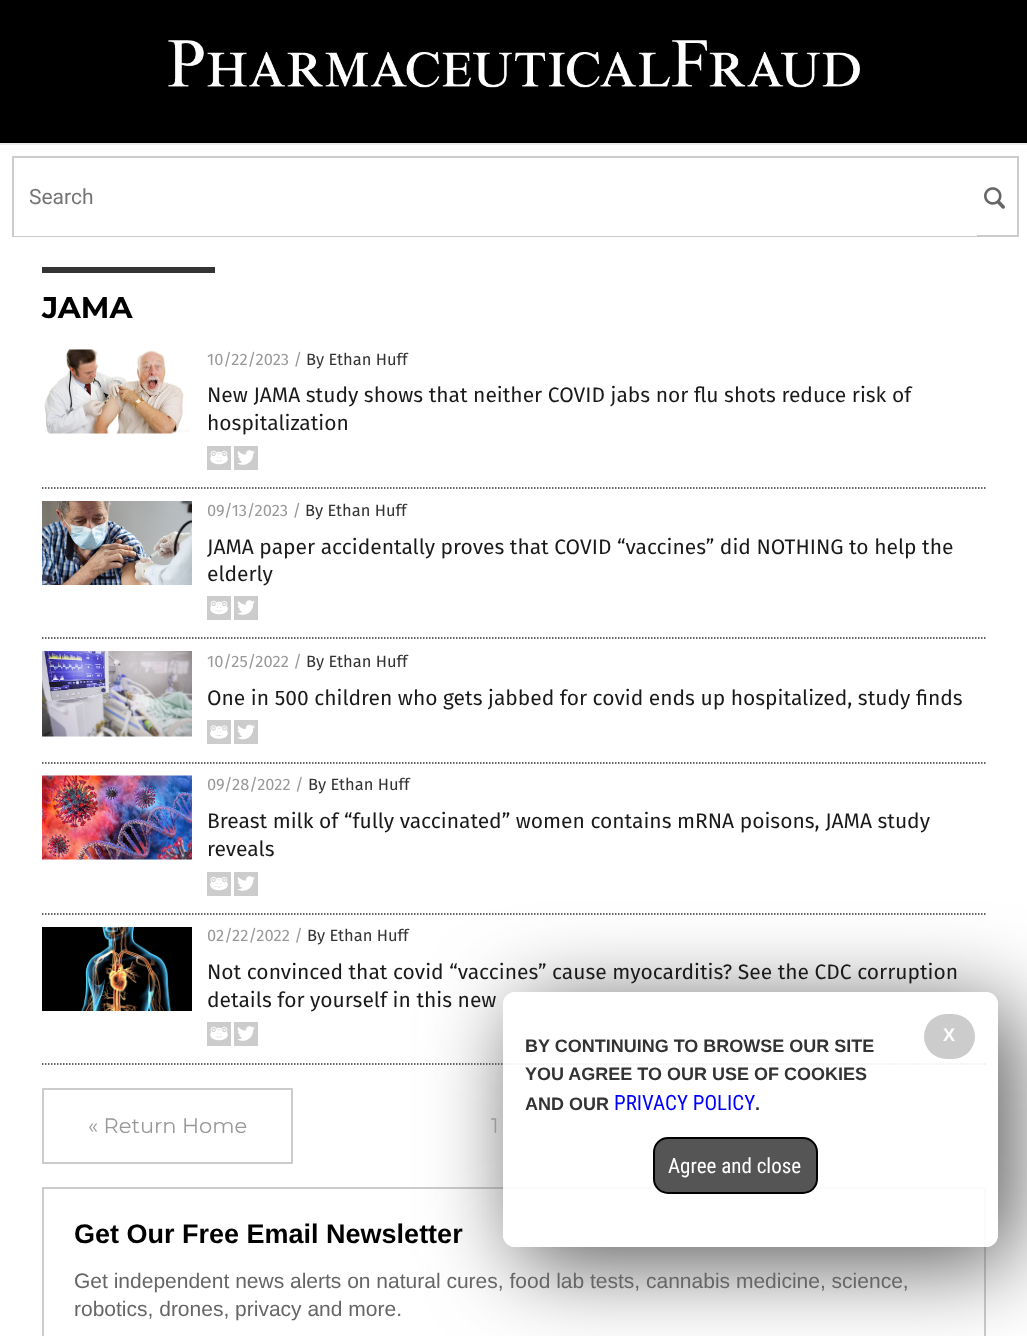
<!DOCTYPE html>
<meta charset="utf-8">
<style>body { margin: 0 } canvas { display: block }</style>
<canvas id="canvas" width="1027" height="1336"></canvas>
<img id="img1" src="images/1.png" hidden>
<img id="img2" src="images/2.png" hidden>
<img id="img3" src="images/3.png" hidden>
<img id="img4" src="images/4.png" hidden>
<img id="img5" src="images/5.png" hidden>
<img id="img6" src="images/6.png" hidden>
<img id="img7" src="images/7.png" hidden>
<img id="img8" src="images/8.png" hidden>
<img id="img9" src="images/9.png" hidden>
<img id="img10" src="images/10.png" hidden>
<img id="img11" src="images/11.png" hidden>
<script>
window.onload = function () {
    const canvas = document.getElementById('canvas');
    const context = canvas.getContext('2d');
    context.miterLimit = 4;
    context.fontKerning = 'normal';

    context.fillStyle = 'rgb(0, 0, 0)';
    context.fillRect(0, 0, 1027, 1336);
    context.drawImage(document.getElementById('img1'), 168, 40, 692, 48);
    context.fillStyle = 'rgb(255, 255, 255)';
    context.fillRect(0, 145, 1027, 1191);
    context.fillStyle = 'rgb(236, 236, 236)';
    context.fillRect(0, 143, 1027, 2);
    context.strokeStyle = 'rgb(204, 204, 204)';
    context.lineWidth = 2;
    context.strokeRect(13, 157, 1005, 79);
    context.fillStyle = 'rgb(255, 255, 255)';
    context.fillRect(14, 235, 963, 1);
    context.drawImage(document.getElementById('img2'), 984, 187, 21, 22);
    context.fillStyle = 'rgb(52, 52, 52)';
    context.fillRect(42, 267, 173, 6);
    context.beginPath();
    context.moveTo(42, 488);
    context.lineTo(985.5, 488);
    context.strokeStyle = 'rgb(52, 52, 52)';
    context.lineWidth = 1.5;
    context.setLineDash([1.5, 1.5]);
    context.stroke();
    context.drawImage(document.getElementById('img3'), 44, 349, 146, 85);
    context.drawImage(document.getElementById('img4'), 207, 446, 24, 24);
    context.drawImage(document.getElementById('img5'), 234, 446, 24, 24);
    context.beginPath();
    context.moveTo(42, 638);
    context.lineTo(985.5, 638);
    context.stroke();
    context.drawImage(document.getElementById('img6'), 42, 501, 150, 84);
    context.drawImage(document.getElementById('img4'), 207, 596, 24, 24);
    context.drawImage(document.getElementById('img5'), 234, 596, 24, 24);
    context.beginPath();
    context.moveTo(42, 763);
    context.lineTo(985.5, 763);
    context.stroke();
    context.drawImage(document.getElementById('img7'), 42, 651, 150, 86);
    context.drawImage(document.getElementById('img8'), 207, 720, 24, 24);
    context.drawImage(document.getElementById('img9'), 234, 720, 24, 24);
    context.beginPath();
    context.moveTo(42, 914);
    context.lineTo(985.5, 914);
    context.stroke();
    context.drawImage(document.getElementById('img10'), 42, 775, 150, 85);
    context.drawImage(document.getElementById('img4'), 207, 872, 24, 24);
    context.drawImage(document.getElementById('img5'), 234, 872, 24, 24);
    context.beginPath();
    context.moveTo(42, 1064);
    context.lineTo(985.5, 1064);
    context.stroke();
    context.drawImage(document.getElementById('img11'), 42, 927, 150, 84);
    context.drawImage(document.getElementById('img4'), 207, 1022, 24, 24);
    context.drawImage(document.getElementById('img5'), 234, 1022, 24, 24);
    context.strokeStyle = 'rgb(204, 204, 204)';
    context.lineWidth = 2;
    context.setLineDash([]);
    context.strokeRect(43, 1089, 249, 74);
    context.strokeRect(43, 1188, 942, 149);
    context.save();
    context.beginPath();
    context.moveTo(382, 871);
    context.lineTo(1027, 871);
    context.lineTo(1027, 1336);
    context.lineTo(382, 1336);
    context.closePath();
    context.moveTo(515, 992);
    context.lineTo(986, 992);
    context.bezierCurveTo(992.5, 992, 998, 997.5, 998, 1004);
    context.lineTo(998, 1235);
    context.bezierCurveTo(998, 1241.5, 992.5, 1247, 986, 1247);
    context.lineTo(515, 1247);
    context.bezierCurveTo(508.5, 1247, 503, 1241.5, 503, 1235);
    context.lineTo(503, 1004);
    context.bezierCurveTo(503, 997.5, 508.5, 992, 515, 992);
    context.closePath();
    context.clip('evenodd');
    context.fillStyle = 'rgb(85, 85, 85)';
    context.filter = 'blur(45px)';
    context.beginPath();
    context.roundRect(518, 1007, 495, 255, 12);
    context.fill();
    context.filter = 'none';
    context.restore();
    context.fillStyle = 'rgba(255, 255, 255, 0.9)';
    context.beginPath();
    context.roundRect(503, 992, 495, 255, 12);
    context.fill();
    context.fillStyle = 'rgb(204, 204, 204)';
    context.beginPath();
    context.roundRect(924, 1014, 51, 45, 22.5);
    context.fill();
    context.fillStyle = 'rgb(85, 85, 85)';
    context.beginPath();
    context.roundRect(654, 1138, 163, 55, 14);
    context.fill();
    context.strokeStyle = 'rgb(0, 0, 0)';
    context.stroke();
    context.font = '21px Roboto';
    context.fillStyle = 'rgb(117, 117, 117)';
    context.fillText('Search', 29, 204);
    context.font = 'bold 30px Montserrat';
    context.fillStyle = 'rgb(0, 0, 0)';
    context.fillText('JAMA', 42, 318);
    context.font = '16.5px Fira Sans';
    context.fillStyle = 'rgb(153, 153, 153)';
    context.fillText('10/22/2023 /', 207, 365);
    context.fillStyle = 'rgb(51, 51, 51)';
    context.fillText('By Ethan Huff', 306, 365);
    context.font = '21px Fira Sans';
    context.fillStyle = 'rgb(26, 26, 26)';
    context.fillText('New JAMA study shows that neither COVID jabs nor flu shots reduce risk of', 207, 402);
    context.fillText('hospitalization', 207, 430);
    context.font = '16.5px Fira Sans';
    context.fillStyle = 'rgb(153, 153, 153)';
    context.fillText('09/13/2023 /', 207, 516);
    context.fillStyle = 'rgb(51, 51, 51)';
    context.fillText('By Ethan Huff', 305, 516);
    context.font = '21px Fira Sans';
    context.fillStyle = 'rgb(26, 26, 26)';
    context.fillText('JAMA paper accidentally proves that COVID “vaccines” did NOTHING to help the', 207, 554);
    context.fillText('elderly', 207, 581);
    context.font = '16.5px Fira Sans';
    context.fillStyle = 'rgb(153, 153, 153)';
    context.fillText('10/25/2022 /', 207, 667);
    context.fillStyle = 'rgb(51, 51, 51)';
    context.fillText('By Ethan Huff', 306, 667);
    context.font = '21px Fira Sans';
    context.fillStyle = 'rgb(26, 26, 26)';
    context.fillText('One in 500 children who gets jabbed for covid ends up hospitalized, study finds', 207, 705);
    context.font = '16.5px Fira Sans';
    context.fillStyle = 'rgb(153, 153, 153)';
    context.fillText('09/28/2022 /', 207, 790);
    context.fillStyle = 'rgb(51, 51, 51)';
    context.fillText('By Ethan Huff', 308, 790);
    context.font = '21px Fira Sans';
    context.fillStyle = 'rgb(26, 26, 26)';
    context.fillText('Breast milk of “fully vaccinated” women contains mRNA poisons, JAMA study', 207, 828);
    context.fillText('reveals', 207, 856);
    context.font = '16.5px Fira Sans';
    context.fillStyle = 'rgb(153, 153, 153)';
    context.fillText('02/22/2022 /', 207, 941);
    context.fillStyle = 'rgb(51, 51, 51)';
    context.fillText('By Ethan Huff', 307, 941);
    context.font = '21px Fira Sans';
    context.fillStyle = 'rgb(26, 26, 26)';
    context.fillText('Not convinced that covid “vaccines” cause myocarditis? See the CDC corruption', 207, 979);
    context.fillText('details for yourself in this new', 207, 1007);
    context.font = '21px Montserrat';
    context.fillStyle = 'rgb(153, 153, 153)';
    context.fillText('« Return Home', 88, 1133);
    context.fillText('1', 491, 1133);
    context.font = 'bold 27px Liberation Sans';
    context.fillStyle = 'rgb(0, 0, 0)';
    context.fillText('Get Our Free Email Newsletter', 74, 1243);
    context.font = '21px Liberation Sans';
    context.fillStyle = 'rgb(102, 102, 102)';
    context.fillText('Get independent news alerts on natural cures, food lab tests, cannabis medicine, science,', 74, 1288);
    context.fillText('robotics, drones, privacy and more.', 74, 1316);
    context.font = 'bold 18px Liberation Sans';
    context.fillStyle = 'rgb(255, 255, 255)';
    context.fillText('X', 943, 1041);
    context.fillStyle = 'rgb(51, 51, 51)';
    context.fillText('BY CONTINUING TO BROWSE OUR SITE', 525, 1052);
    context.fillText('YOU AGREE TO OUR USE OF COOKIES', 525, 1080);
    context.fillText('AND OUR', 525, 1110);
    context.font = '21px Roboto Condensed';
    context.fillStyle = 'rgb(0, 0, 255)';
    context.fillText('PRIVACY POLICY', 614, 1110);
    context.font = 'bold 18px Liberation Sans';
    context.fillStyle = 'rgb(51, 51, 51)';
    context.fillText('.', 755, 1110);
    context.font = '21px Roboto Condensed';
    context.fillStyle = 'rgb(255, 255, 255)';
    context.fillText('Agree and close', 668, 1173);
};
</script>
